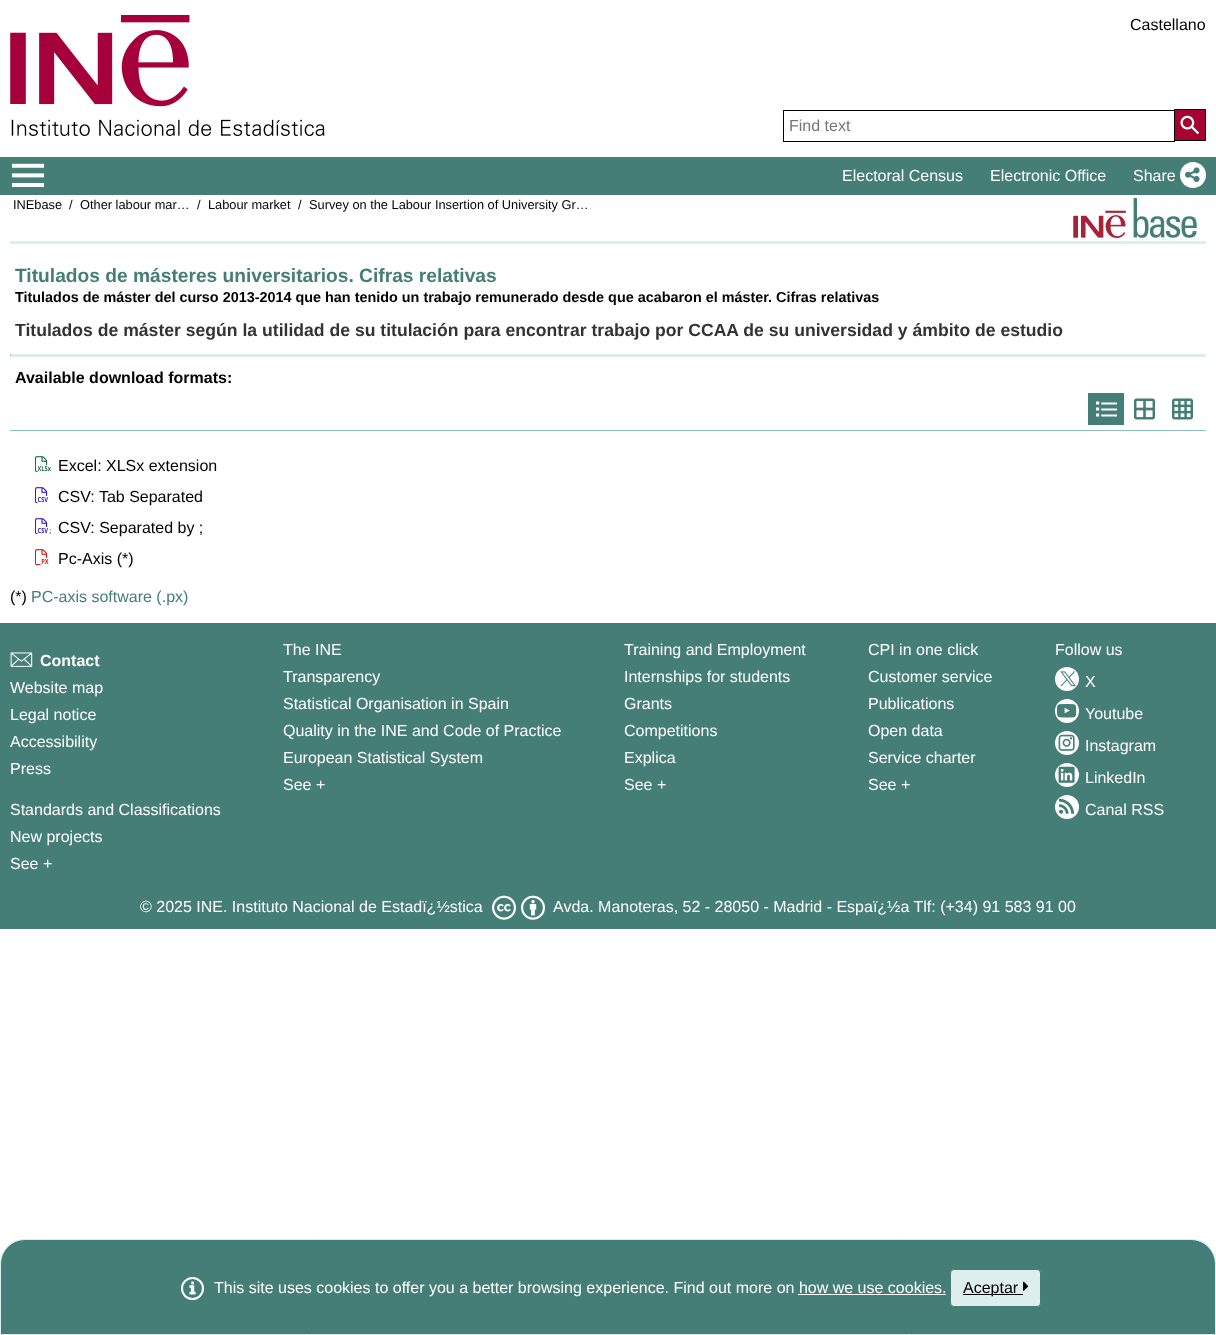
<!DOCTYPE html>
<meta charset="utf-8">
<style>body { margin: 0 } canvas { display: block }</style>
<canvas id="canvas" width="1216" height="1335"></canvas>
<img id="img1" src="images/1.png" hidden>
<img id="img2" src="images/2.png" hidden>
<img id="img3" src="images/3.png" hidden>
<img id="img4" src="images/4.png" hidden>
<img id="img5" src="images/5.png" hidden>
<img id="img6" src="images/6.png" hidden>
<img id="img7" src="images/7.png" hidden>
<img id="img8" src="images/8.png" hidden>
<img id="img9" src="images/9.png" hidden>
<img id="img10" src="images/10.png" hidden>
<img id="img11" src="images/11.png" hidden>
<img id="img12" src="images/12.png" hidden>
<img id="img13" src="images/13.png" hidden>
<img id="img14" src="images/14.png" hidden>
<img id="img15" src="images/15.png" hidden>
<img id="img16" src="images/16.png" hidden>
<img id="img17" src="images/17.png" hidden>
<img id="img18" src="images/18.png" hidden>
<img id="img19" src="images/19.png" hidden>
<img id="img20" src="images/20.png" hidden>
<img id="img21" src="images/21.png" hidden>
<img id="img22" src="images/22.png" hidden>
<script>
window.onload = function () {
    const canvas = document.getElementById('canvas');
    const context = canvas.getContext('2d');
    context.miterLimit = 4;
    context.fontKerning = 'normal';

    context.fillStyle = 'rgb(255, 255, 255)';
    context.fillRect(0, 0, 1216, 1335);
    context.drawImage(document.getElementById('img1'), 10, 15, 315, 121);
    context.strokeStyle = 'rgb(0, 0, 0)';
    context.strokeRect(783.5, 110.5, 391, 31);
    context.fillStyle = 'rgb(167, 3, 50)';
    context.beginPath();
    context.rect(1174.5, 109.5, 31, 31);
    context.fill();
    context.stroke();
    context.drawImage(document.getElementById('img2'), 1180, 115, 20, 20);
    context.fillStyle = 'rgb(69, 126, 118)';
    context.fillRect(0, 157, 1216, 38);
    context.drawImage(document.getElementById('img3'), 12, 163, 32, 24);
    context.fillStyle = 'rgb(255, 255, 255)';
    context.beginPath();
    context.arc(1193, 175, 13, 0, 2 * Math.PI);
    context.fill();
    context.drawImage(document.getElementById('img4'), 1185, 167, 15, 15);
    context.fillStyle = 'rgb(221, 238, 236)';
    context.fillRect(10, 241, 1196, 3);
    context.drawImage(document.getElementById('img5'), 1073, 198, 124, 40);
    context.fillStyle = 'rgb(238, 238, 238)';
    context.beginPath();
    context.moveTo(1206, 354);
    context.lineTo(1206, 357);
    context.lineTo(1205, 354);
    context.closePath();
    context.fill();
    context.fillStyle = 'rgb(221, 238, 234)';
    context.beginPath();
    context.moveTo(1206, 357);
    context.lineTo(10, 357);
    context.lineTo(11, 354);
    context.lineTo(1205, 354);
    context.closePath();
    context.fill();
    context.fillStyle = 'rgb(159, 159, 159)';
    context.beginPath();
    context.moveTo(10, 357);
    context.lineTo(10, 354);
    context.lineTo(11, 354);
    context.closePath();
    context.fill();
    context.fillStyle = 'rgb(137, 190, 186)';
    context.fillRect(10, 430, 1196, 1);
    context.fillStyle = 'rgb(69, 126, 118)';
    context.fillRect(1088, 393, 36, 32);
    context.drawImage(document.getElementById('img6'), 1096, 401, 21, 16);
    context.drawImage(document.getElementById('img7'), 1134, 398, 21, 22);
    context.drawImage(document.getElementById('img8'), 1172, 398, 21, 22);
    context.drawImage(document.getElementById('img9'), 35, 456, 16, 17);
    context.drawImage(document.getElementById('img10'), 35, 487, 13, 17);
    context.drawImage(document.getElementById('img11'), 35, 518, 16, 17);
    context.drawImage(document.getElementById('img12'), 35, 549, 14, 17);
    context.fillRect(0, 623, 1216, 306);
    context.drawImage(document.getElementById('img13'), 10, 652, 23, 15);
    context.fillStyle = 'rgb(255, 255, 255)';
    context.beginPath();
    context.arc(1067, 679, 12, 0, 2 * Math.PI);
    context.fill();
    context.drawImage(document.getElementById('img14'), 1060, 671, 16, 16);
    context.beginPath();
    context.arc(1067, 711, 12, 0, 2 * Math.PI);
    context.fill();
    context.drawImage(document.getElementById('img15'), 1057, 704, 20, 14);
    context.beginPath();
    context.arc(1067, 743, 12, 0, 2 * Math.PI);
    context.fill();
    context.drawImage(document.getElementById('img16'), 1058, 734, 17, 17);
    context.beginPath();
    context.arc(1067, 775, 12, 0, 2 * Math.PI);
    context.fill();
    context.drawImage(document.getElementById('img17'), 1058, 766, 17, 17);
    context.beginPath();
    context.arc(1067, 807, 12, 0, 2 * Math.PI);
    context.fill();
    context.drawImage(document.getElementById('img18'), 1059, 798, 16, 16);
    context.drawImage(document.getElementById('img19'), 492, 895, 24, 25);
    context.drawImage(document.getElementById('img20'), 521, 895, 24, 25);
    context.fillStyle = 'rgb(69, 126, 118)';
    context.beginPath();
    context.roundRect(0.5, 1239.5, 1215, 95, [24.5, 24.5, 0, 0]);
    context.fill();
    context.strokeStyle = 'rgb(221, 238, 236)';
    context.stroke();
    context.beginPath();
    context.arc(192.5, 1288.5, 10.5, 0, 2 * Math.PI);
    context.strokeStyle = 'rgb(255, 255, 255)';
    context.lineWidth = 2;
    context.stroke();
    context.drawImage(document.getElementById('img21'), 189, 1281, 7, 14);
    context.fillStyle = 'rgb(221, 238, 236)';
    context.beginPath();
    context.roundRect(950.5, 1269.5, 90, 37, 3.5);
    context.fill();
    context.strokeStyle = 'rgb(69, 126, 118)';
    context.lineWidth = 1;
    context.stroke();
    context.fillStyle = 'rgb(0, 0, 0)';
    context.fillRect(963, 1294, 60, 1);
    context.drawImage(document.getElementById('img22'), 1023, 1281, 6, 10);
    context.fillStyle = 'rgb(255, 255, 255)';
    context.fillRect(798, 1294, 148, 1);
    context.font = '16px Liberation Sans';
    context.fillStyle = 'rgb(0, 0, 0)';
    context.fillText('Castellano', 1130, 30);
    context.fillStyle = 'rgb(118, 118, 118)';
    context.fillText('Find text', 789, 131);
    context.fillStyle = 'rgb(255, 255, 255)';
    context.fillText('Electoral Census', 842, 181);
    context.fillText('Electronic Office', 990, 181);
    context.fillText('Share', 1133, 181);
    context.font = '12.8px Liberation Sans';
    context.fillStyle = 'rgb(0, 0, 0)';
    context.fillText('INEbase', 13, 209);
    context.fillText('/', 69, 209);
    context.fillText('Other labour mar…', 80, 209);
    context.fillText('/', 197, 209);
    context.fillText('Labour market', 208, 209);
    context.fillText('/', 298, 209);
    context.fillText('Survey on the Labour Insertion of University Gr…', 309, 209);
    context.font = 'bold 19.2px Liberation Sans';
    context.fillStyle = 'rgb(69, 126, 118)';
    context.fillText('Titulados de másteres universitarios. Cifras relativas', 15, 282);
    context.font = 'bold 14.4px Liberation Sans';
    context.fillStyle = 'rgb(0, 0, 0)';
    context.fillText('Titulados de máster del curso 2013-2014 que han tenido un trabajo remunerado desde que acabaron el máster. Cifras relativas', 15, 302);
    context.font = 'bold 17.6px Liberation Sans';
    context.fillStyle = 'rgb(51, 51, 51)';
    context.fillText('Titulados de máster según la utilidad de su titulación para encontrar trabajo por CCAA de su universidad y ámbito de estudio', 15, 336);
    context.font = 'bold 16px Liberation Sans';
    context.fillStyle = 'rgb(0, 0, 0)';
    context.fillText('Available download formats:', 15, 383);
    context.font = '16px Liberation Sans';
    context.fillText('Excel: XLSx extension', 58, 471);
    context.fillText('CSV: Tab Separated', 58, 502);
    context.fillText('CSV: Separated by ;', 58, 533);
    context.fillText('Pc-Axis (*)', 58, 564);
    context.fillText('(*)', 10, 602);
    context.fillStyle = 'rgb(69, 126, 118)';
    context.fillText('PC-axis software (.px)', 31, 602);
    context.font = 'bold 16px Liberation Sans';
    context.fillStyle = 'rgb(255, 255, 255)';
    context.fillText('Contact', 40, 666);
    context.font = '16px Liberation Sans';
    context.fillText('Website map', 10, 693);
    context.fillText('Legal notice', 10, 720);
    context.fillText('Accessibility', 10, 747);
    context.fillText('Press', 10, 774);
    context.fillText('Standards and Classifications', 10, 815);
    context.fillText('New projects', 10, 842);
    context.fillText('See +', 10, 869);
    context.fillText('The INE', 283, 655);
    context.fillText('Transparency', 283, 682);
    context.fillText('Statistical Organisation in Spain', 283, 709);
    context.fillText('Quality in the INE and Code of Practice', 283, 736);
    context.fillText('European Statistical System', 283, 763);
    context.fillText('See +', 283, 790);
    context.fillText('Training and Employment', 624, 655);
    context.fillText('Internships for students', 624, 682);
    context.fillText('Grants', 624, 709);
    context.fillText('Competitions', 624, 736);
    context.fillText('Explica', 624, 763);
    context.fillText('See +', 624, 790);
    context.fillText('CPI in one click', 868, 655);
    context.fillText('Customer service', 868, 682);
    context.fillText('Publications', 868, 709);
    context.fillText('Open data', 868, 736);
    context.fillText('Service charter', 868, 763);
    context.fillText('See +', 868, 790);
    context.fillText('Follow us', 1055, 655);
    context.fillText('X', 1085, 687);
    context.fillText('Youtube', 1085, 719);
    context.fillText('Instagram', 1085, 751);
    context.fillText('LinkedIn', 1085, 783);
    context.fillText('Canal RSS', 1085, 815);
    context.fillText('© 2025 INE. Instituto Nacional de Estadï¿½stica', 140, 912);
    context.fillText('Avda. Manoteras, 52 - 28050 - Madrid - Espaï¿½a Tlf: (+34) 91 583 91 00', 553, 912);
    context.fillText('This site uses cookies to offer you a better browsing experience. Find out more on how we use cookies.', 214, 1293);
    context.fillStyle = 'rgb(0, 0, 0)';
    context.fillText('Aceptar', 963, 1293);
};
</script>
